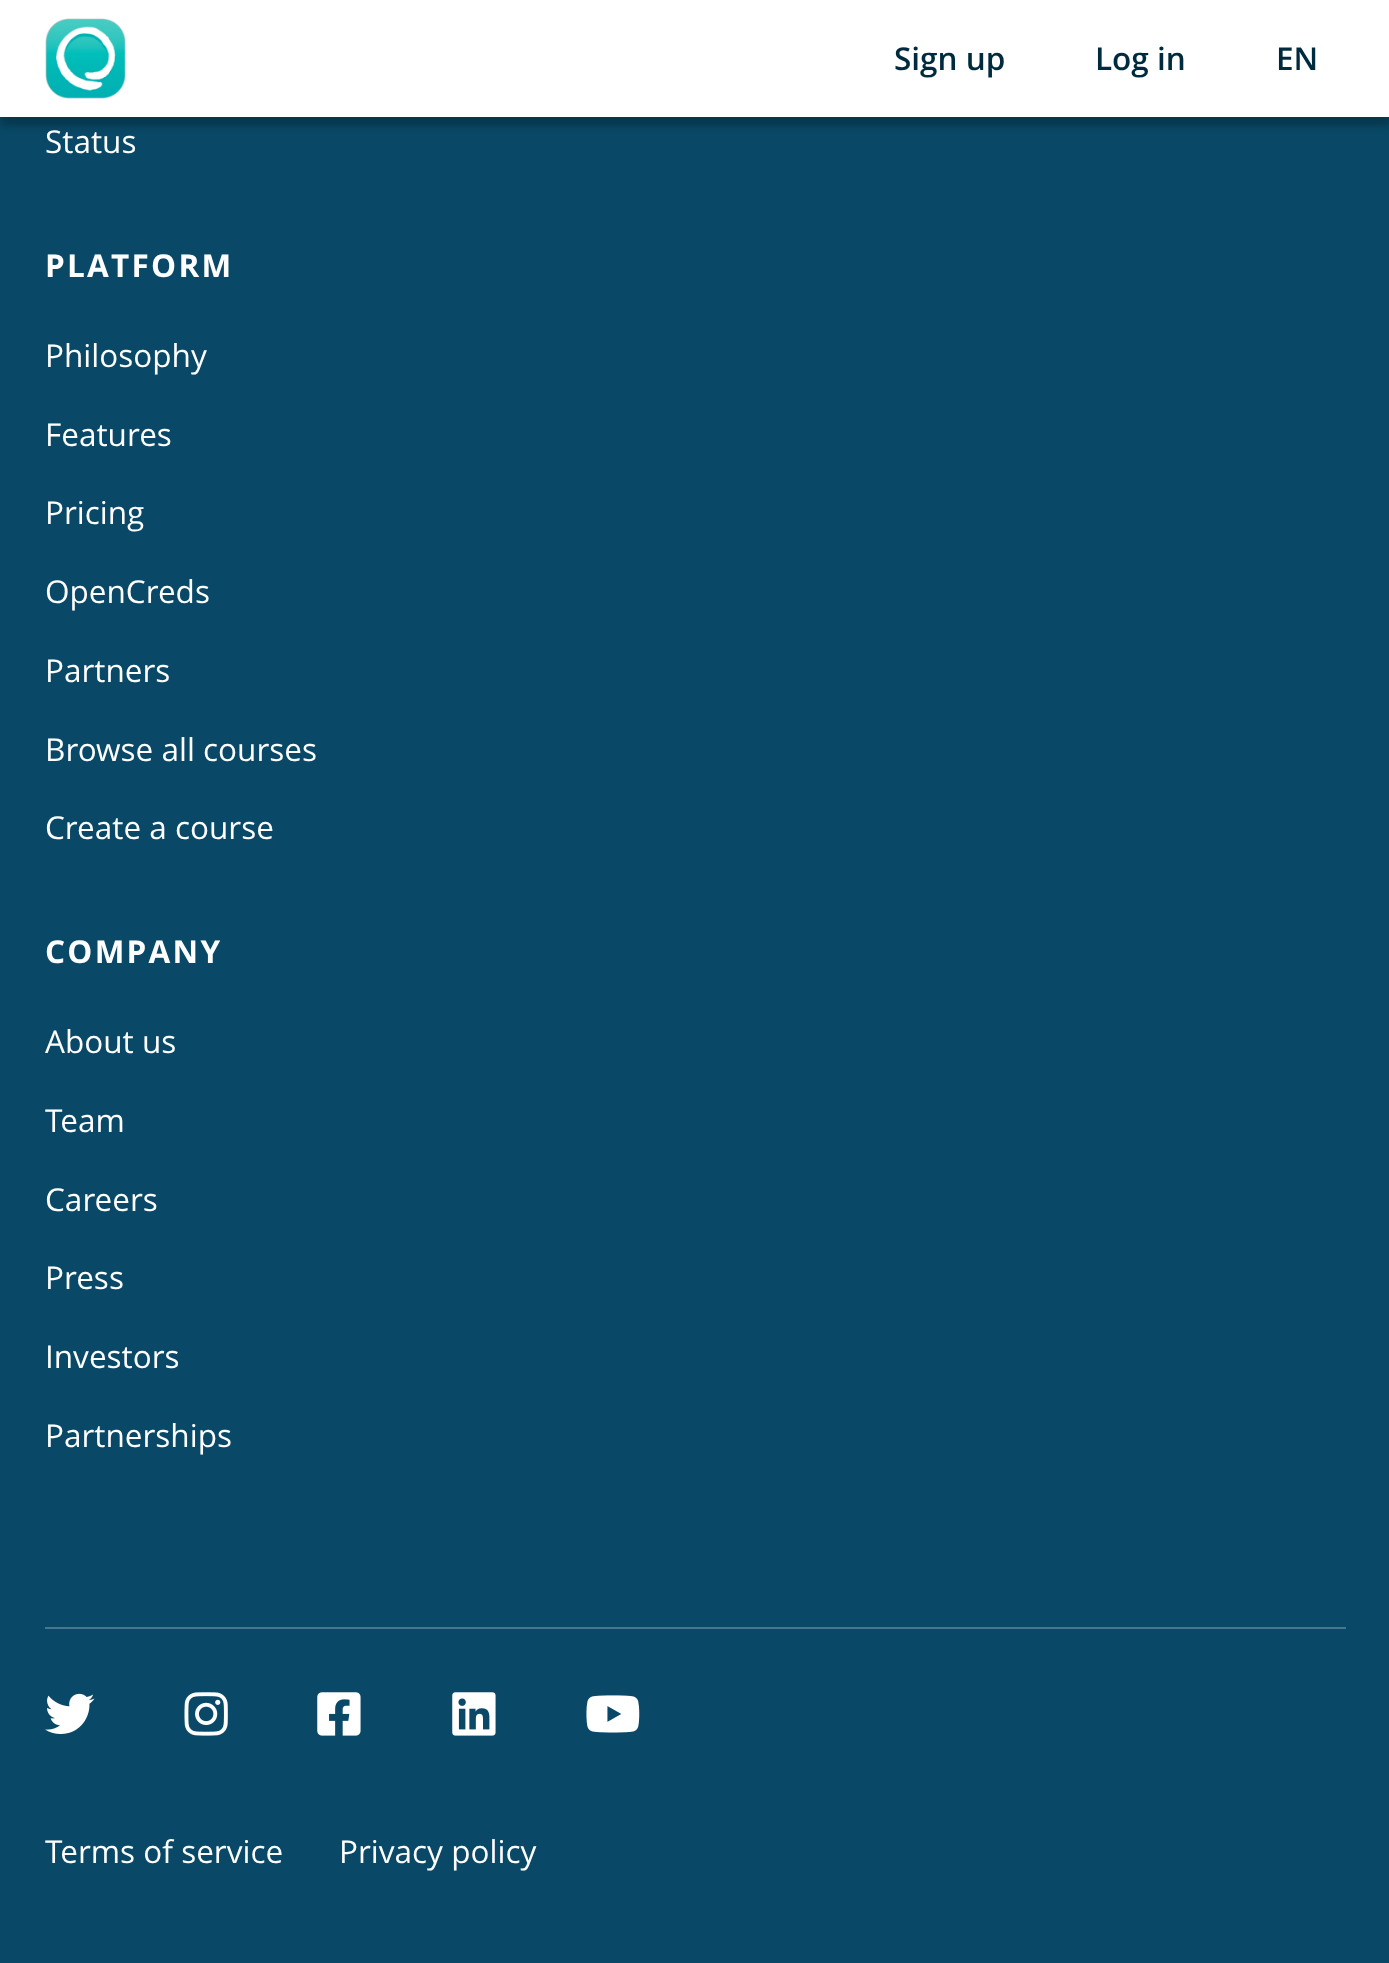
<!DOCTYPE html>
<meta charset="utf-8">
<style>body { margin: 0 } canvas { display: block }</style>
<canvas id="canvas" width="1389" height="1963"></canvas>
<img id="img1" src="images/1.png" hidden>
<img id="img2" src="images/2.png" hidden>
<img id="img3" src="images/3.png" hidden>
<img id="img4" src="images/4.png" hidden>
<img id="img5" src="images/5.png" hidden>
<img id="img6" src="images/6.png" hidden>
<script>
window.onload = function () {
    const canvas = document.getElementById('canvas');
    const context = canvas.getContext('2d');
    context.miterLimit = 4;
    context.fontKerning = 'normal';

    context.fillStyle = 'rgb(9, 73, 103)';
    context.fillRect(0, 0, 1389, 1963);
    context.fillStyle = 'rgba(0, 0, 0, 0.25)';
    context.filter = 'blur(4.5px)';
    context.beginPath();
    context.rect(0, 9, 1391, 117);
    context.fill();
    context.filter = 'none';
    context.fillStyle = 'rgb(255, 255, 255)';
    context.fillRect(0, 0, 1389, 117);
    context.drawImage(document.getElementById('img1'), 45, 18, 81, 81);
    context.fillStyle = 'rgb(71, 119, 141)';
    context.fillRect(45, 1627, 1301, 2);
    context.drawImage(document.getElementById('img2'), 45, 1693, 50, 42);
    context.drawImage(document.getElementById('img3'), 184, 1692, 44, 44);
    context.drawImage(document.getElementById('img4'), 317, 1692, 44, 44);
    context.drawImage(document.getElementById('img5'), 452, 1692, 44, 44);
    context.drawImage(document.getElementById('img6'), 586, 1695, 54, 38);
    context.font = '600 31.5px Open Sans';
    context.fillStyle = 'rgb(0, 43, 62)';
    context.fillText('Sign up', 894, 70);
    context.fillText('Log in', 1095, 70);
    context.fillText('EN', 1276, 70);
    context.font = '31.5px Open Sans';
    context.fillStyle = 'rgb(255, 255, 255)';
    context.fillText('Status', 45, 153);
    context.letterSpacing = '2.25px';
    context.font = 'bold 31.5px Open Sans';
    context.fillText('PLATFORM', 45, 277);
    context.letterSpacing = '0px';
    context.font = '31.5px Open Sans';
    context.fillText('Philosophy', 45, 367);
    context.fillText('Features', 45, 446);
    context.fillText('Pricing', 45, 524);
    context.fillText('OpenCreds', 45, 603);
    context.fillText('Partners', 45, 682);
    context.fillText('Browse all courses', 45, 761);
    context.fillText('Create a course', 45, 839);
    context.letterSpacing = '2.25px';
    context.font = 'bold 31.5px Open Sans';
    context.fillText('COMPANY', 45, 963);
    context.letterSpacing = '0px';
    context.font = '31.5px Open Sans';
    context.fillText('About us', 45, 1053);
    context.fillText('Team', 45, 1132);
    context.fillText('Careers', 45, 1211);
    context.fillText('Press', 45, 1289);
    context.fillText('Investors', 45, 1368);
    context.fillText('Partnerships', 45, 1447);
    context.fillText('Terms of service', 45, 1863);
    context.fillText('Privacy policy', 339, 1863);
};
</script>
